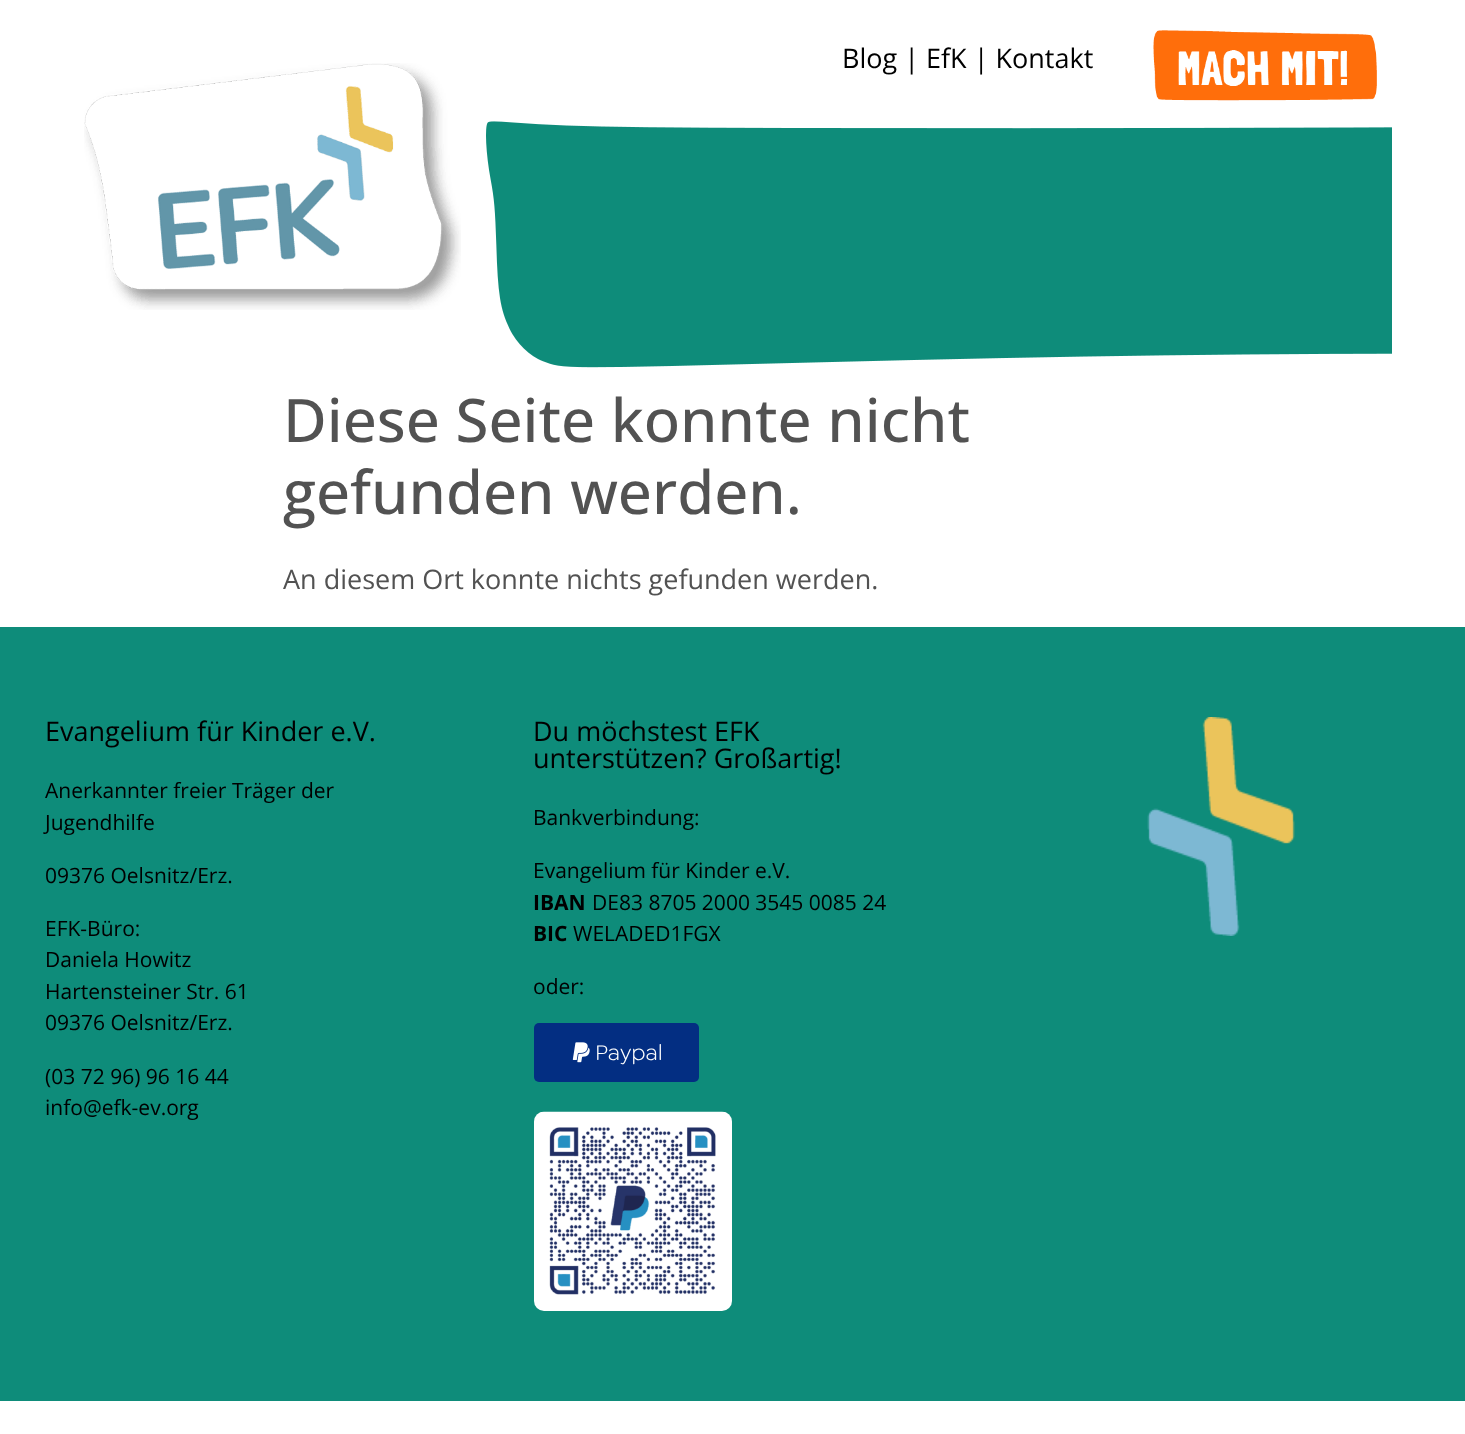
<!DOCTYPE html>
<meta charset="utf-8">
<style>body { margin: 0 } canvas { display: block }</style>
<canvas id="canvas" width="1465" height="1434"></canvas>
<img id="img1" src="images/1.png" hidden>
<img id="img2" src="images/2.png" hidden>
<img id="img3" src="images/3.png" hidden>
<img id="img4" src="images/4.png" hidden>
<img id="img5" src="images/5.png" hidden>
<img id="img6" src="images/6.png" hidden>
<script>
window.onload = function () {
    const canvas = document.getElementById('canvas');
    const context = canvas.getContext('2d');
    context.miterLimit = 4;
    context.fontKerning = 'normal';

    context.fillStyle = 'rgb(255, 255, 255)';
    context.fillRect(0, 0, 1465, 1434);
    context.drawImage(document.getElementById('img1'), 84, 63, 377, 247);
    context.drawImage(document.getElementById('img2'), 1153, 30, 224, 71);
    context.drawImage(document.getElementById('img3'), 486, 121, 906, 247);
    context.fillStyle = 'rgb(14, 140, 122)';
    context.fillRect(0, 627, 1465, 774);
    context.fillStyle = 'rgb(3, 46, 130)';
    context.beginPath();
    context.roundRect(534, 1023, 165, 59, 5);
    context.fill();
    context.drawImage(document.getElementById('img4'), 572, 1042, 18, 21);
    context.drawImage(document.getElementById('img5'), 534, 1111, 198, 200);
    context.drawImage(document.getElementById('img6'), 1147, 717, 148, 219);
    context.font = '27px Open Sans';
    context.fillStyle = 'rgb(0, 0, 0)';
    context.fillText('Blog | EfK | Kontakt', 842, 68);
    context.font = '500 60px Open Sans';
    context.fillStyle = 'rgb(82, 82, 82)';
    context.fillText('Diese Seite konnte nicht', 283, 442);
    context.fillText('gefunden werden.', 283, 514);
    context.font = '27px Open Sans';
    context.fillText('An diesem Ort konnte nichts gefunden werden.', 283, 589);
    context.fillStyle = 'rgb(0, 0, 0)';
    context.fillText('Evangelium für Kinder e.V.', 45, 741);
    context.font = '21px Open Sans';
    context.fillText('Anerkannter freier Träger der', 45, 798);
    context.fillText('Jugendhilfe', 45, 830);
    context.fillText('09376 Oelsnitz/Erz.', 45, 883);
    context.fillText('EFK-Büro:', 45, 936);
    context.fillText('Daniela Howitz', 45, 967);
    context.fillText('Hartensteiner Str. 61', 45, 999);
    context.fillText('09376 Oelsnitz/Erz.', 45, 1030);
    context.fillText('(03 72 96) 96 16 44', 45, 1084);
    context.fillText('info@efk-ev.org', 45, 1115);
    context.font = '27px Open Sans';
    context.fillText('Du möchstest EFK', 533, 741);
    context.fillText('unterstützen? Großartig!', 533, 768);
    context.font = '21px Open Sans';
    context.fillText('Bankverbindung:', 533, 825);
    context.fillText('Evangelium für Kinder e.V.', 533, 878);
    context.font = 'bold 21px Open Sans';
    context.fillText('IBAN', 533, 910);
    context.font = '21px Open Sans';
    context.fillText('DE83 8705 2000 3545 0085 24', 592, 910);
    context.font = 'bold 21px Open Sans';
    context.fillText('BIC', 533, 941);
    context.font = '21px Open Sans';
    context.fillText('WELADED1FGX', 573, 941);
    context.fillText('oder:', 533, 994);
    context.font = '22.5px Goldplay';
    context.fillStyle = 'rgb(255, 255, 255)';
    context.fillText('Paypal', 595, 1060);
};
</script>
